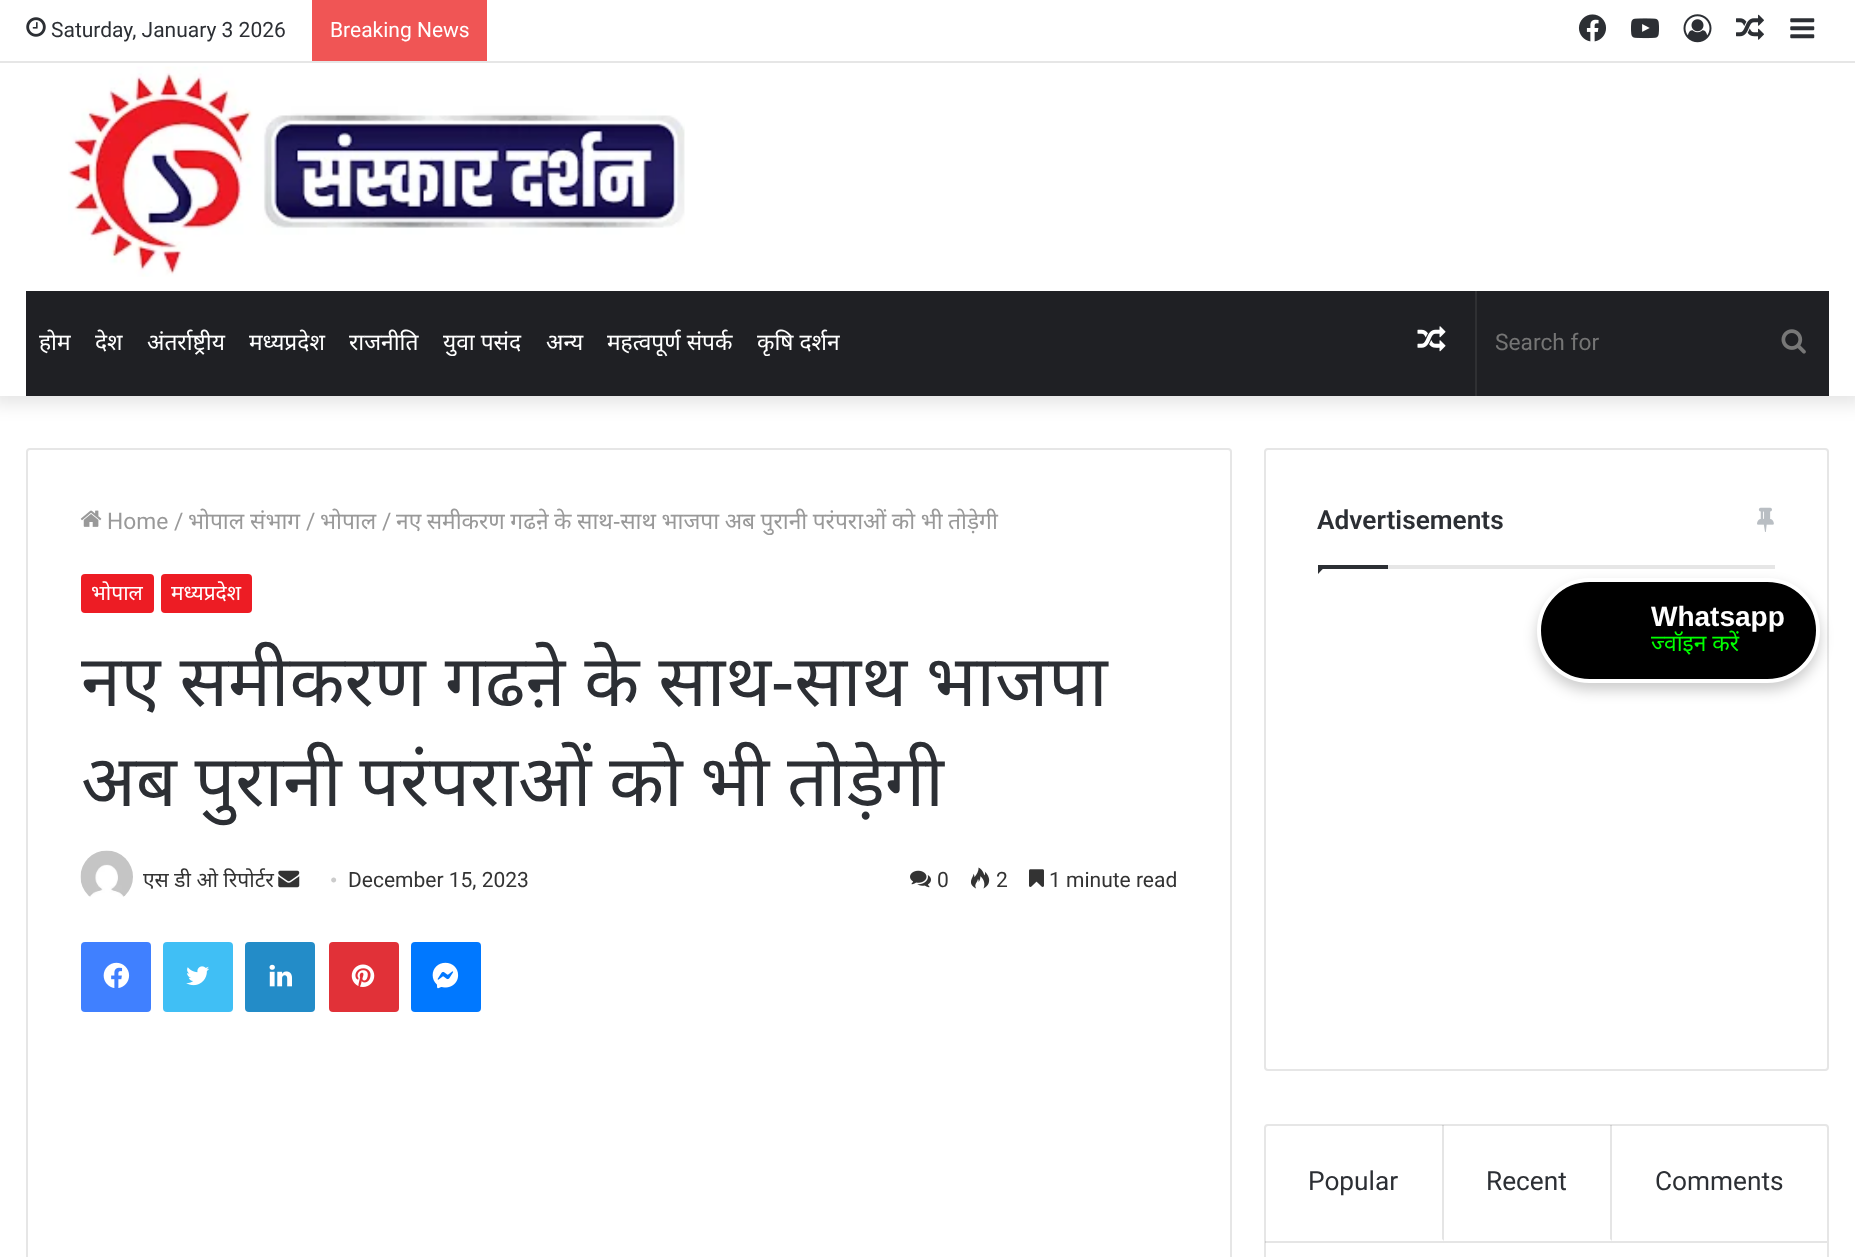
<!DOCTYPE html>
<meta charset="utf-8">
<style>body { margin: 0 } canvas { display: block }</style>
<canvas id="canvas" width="1855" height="1257"></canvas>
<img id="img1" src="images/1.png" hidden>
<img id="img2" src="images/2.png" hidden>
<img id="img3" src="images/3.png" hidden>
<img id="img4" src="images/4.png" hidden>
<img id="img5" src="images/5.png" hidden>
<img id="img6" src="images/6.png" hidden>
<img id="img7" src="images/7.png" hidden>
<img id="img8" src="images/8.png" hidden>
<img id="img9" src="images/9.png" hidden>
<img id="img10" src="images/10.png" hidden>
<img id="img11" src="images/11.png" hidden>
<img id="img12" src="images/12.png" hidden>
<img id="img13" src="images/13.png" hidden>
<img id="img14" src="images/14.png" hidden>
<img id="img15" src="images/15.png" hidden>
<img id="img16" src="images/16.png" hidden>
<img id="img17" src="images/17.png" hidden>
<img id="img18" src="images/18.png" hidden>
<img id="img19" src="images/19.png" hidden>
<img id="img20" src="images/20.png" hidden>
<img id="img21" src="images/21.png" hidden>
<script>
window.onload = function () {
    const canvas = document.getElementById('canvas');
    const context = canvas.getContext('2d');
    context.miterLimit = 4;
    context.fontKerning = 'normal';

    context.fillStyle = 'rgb(255, 255, 255)';
    context.fillRect(0, 0, 1855, 1257);
    context.fillStyle = 'rgba(0, 0, 0, 0.1)';
    context.filter = 'blur(9px)';
    context.beginPath();
    context.rect(-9, -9, 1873, 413);
    context.fill();
    context.filter = 'none';
    context.fillStyle = 'rgb(255, 255, 255)';
    context.fillRect(0, 0, 1855, 396);
    context.fillStyle = 'rgb(230, 230, 230)';
    context.fillRect(0, 61, 1855, 2);
    context.drawImage(document.getElementById('img1'), 26, 17, 20, 20);
    context.fillStyle = 'rgb(240, 85, 85)';
    context.fillRect(312, 0, 175, 61);
    context.drawImage(document.getElementById('img2'), 1578, 14, 28, 28);
    context.drawImage(document.getElementById('img3'), 1631, 18, 28, 21);
    context.drawImage(document.getElementById('img4'), 1683, 14, 29, 29);
    context.drawImage(document.getElementById('img5'), 1736, 14, 28, 26);
    context.drawImage(document.getElementById('img6'), 1790, 18, 25, 21);
    context.drawImage(document.getElementById('img7'), 68, 66, 617, 211);
    context.fillStyle = 'rgb(31, 32, 36)';
    context.fillRect(26, 291, 1803, 105);
    context.drawImage(document.getElementById('img8'), 1417, 326, 29, 26);
    context.fillStyle = 'rgb(47, 48, 51)';
    context.fillRect(1475, 291, 2, 105);
    context.drawImage(document.getElementById('img9'), 1781, 329, 25, 25);
    context.beginPath();
    context.roundRect(27, 449, 1204, 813, 3);
    context.strokeStyle = 'rgb(230, 230, 230)';
    context.lineWidth = 2;
    context.stroke();
    context.drawImage(document.getElementById('img10'), 80, 510, 22, 17);
    context.fillStyle = 'rgb(237, 28, 36)';
    context.beginPath();
    context.roundRect(81, 574, 73, 39, 4);
    context.fill();
    context.beginPath();
    context.roundRect(161, 574, 91, 39, 4);
    context.fill();
    context.drawImage(document.getElementById('img11'), 80, 850, 53, 47);
    context.drawImage(document.getElementById('img12'), 278, 870, 22, 18);
    context.drawImage(document.getElementById('img13'), 910, 870, 21, 18);
    context.drawImage(document.getElementById('img14'), 971, 867, 19, 22);
    context.drawImage(document.getElementById('img15'), 1029, 869, 15, 18);
    context.fillStyle = 'rgb(64, 128, 255)';
    context.beginPath();
    context.roundRect(81, 942, 70, 70, 4);
    context.fill();
    context.drawImage(document.getElementById('img16'), 103, 962, 27, 26);
    context.fillStyle = 'rgb(64, 191, 245)';
    context.beginPath();
    context.roundRect(163, 942, 70, 70, 4);
    context.fill();
    context.drawImage(document.getElementById('img17'), 186, 966, 24, 20);
    context.fillStyle = 'rgb(35, 140, 200)';
    context.beginPath();
    context.roundRect(245, 942, 70, 70, 4);
    context.fill();
    context.drawImage(document.getElementById('img18'), 269, 964, 23, 23);
    context.fillStyle = 'rgb(225, 49, 56)';
    context.beginPath();
    context.roundRect(329, 942, 70, 70, 4);
    context.fill();
    context.drawImage(document.getElementById('img19'), 351, 964, 24, 23);
    context.fillStyle = 'rgb(0, 120, 255)';
    context.beginPath();
    context.roundRect(411, 942, 70, 70, 4);
    context.fill();
    context.drawImage(document.getElementById('img20'), 432, 962, 27, 27);
    context.beginPath();
    context.roundRect(1265, 449, 563, 621, 3);
    context.stroke();
    context.fillStyle = 'rgb(230, 230, 230)';
    context.fillRect(1388, 565, 387, 4);
    context.drawImage(document.getElementById('img21'), 1757, 507, 17, 25);
    context.fillStyle = 'rgb(44, 47, 52)';
    context.beginPath();
    context.moveTo(1318, 565);
    context.lineTo(1326.5, 565);
    context.lineTo(1318, 574);
    context.closePath();
    context.fill();
    context.fillRect(1318, 565, 70, 4);
    context.beginPath();
    context.roundRect(1265, 1125, 563, 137, 3);
    context.stroke();
    context.fillStyle = 'rgba(0, 0, 0, 0.1)';
    context.fillRect(1265, 1241, 562, 2);
    context.beginPath();
    context.moveTo(1444, 1125);
    context.lineTo(1444, 1241);
    context.lineTo(1442, 1239);
    context.lineTo(1442, 1125);
    context.closePath();
    context.fill();
    context.beginPath();
    context.moveTo(1612, 1125);
    context.lineTo(1612, 1241);
    context.lineTo(1610, 1239);
    context.lineTo(1610, 1125);
    context.closePath();
    context.fill();
    context.fillStyle = 'rgba(0, 0, 0, 0.2)';
    context.filter = 'blur(7px)';
    context.beginPath();
    context.roundRect(1537, 585, 283, 105, 52.5);
    context.fill();
    context.filter = 'none';
    context.fillStyle = 'rgb(0, 0, 0)';
    context.beginPath();
    context.roundRect(1539, 580, 279, 101, 50.5);
    context.fill();
    context.strokeStyle = 'rgb(255, 255, 255)';
    context.lineWidth = 4;
    context.stroke();
    context.font = '21px Roboto';
    context.fillStyle = 'rgb(44, 47, 52)';
    context.fillText('Saturday, January 3 2026', 51, 37);
    context.fillStyle = 'rgb(255, 255, 255)';
    context.fillText('Breaking News', 330, 37);
    context.font = '22.75px Noto Sans';
    context.fillText('होम', 39, 350);
    context.fillText('देश', 95, 350);
    context.fillText('अंतर्राष्ट्रीय', 147, 350);
    context.fillText('मध्यप्रदेश', 249, 350);
    context.fillText('राजनीति', 349, 350);
    context.fillText('युवा पसंद', 443, 350);
    context.fillText('अन्य', 546, 350);
    context.fillText('महत्वपूर्ण संपर्क', 607, 350);
    context.fillText('कृषि दर्शन', 757, 350);
    context.font = '22.75px Roboto';
    context.fillStyle = 'rgb(117, 117, 117)';
    context.fillText('Search for', 1495, 350);
    context.fillStyle = 'rgb(153, 153, 153)';
    context.fillText('Home', 107, 529);
    context.fillText('/', 174, 529);
    context.font = '22.75px Noto Sans';
    context.fillText('भोपाल संभाग', 188, 529);
    context.font = '22.75px Roboto';
    context.fillText('/', 306, 529);
    context.font = '22.75px Noto Sans';
    context.fillText('भोपाल', 320, 529);
    context.font = '22.75px Roboto';
    context.fillText('/', 382, 529);
    context.wordSpacing = '-0.4px';
    context.font = '22.75px Noto Sans';
    context.fillText('नए समीकरण गढऩे के साथ-साथ भाजपा अब पुरानी परंपराओं को भी तोड़ेगी', 396, 529);
    context.wordSpacing = '0px';
    context.font = '21px Noto Sans';
    context.fillStyle = 'rgb(255, 255, 255)';
    context.fillText('भोपाल', 91, 600);
    context.fillText('मध्यप्रदेश', 171, 600);
    context.wordSpacing = '0.25px';
    context.font = '71.75px Noto Sans';
    context.fillStyle = 'rgb(44, 47, 52)';
    context.fillText('नए समीकरण गढऩे के साथ-साथ भाजपा', 81, 706);
    context.wordSpacing = '-1px';
    context.fillText('अब पुरानी परंपराओं को भी तोड़ेगी', 81, 806);
    context.wordSpacing = '0px';
    context.font = '21px Noto Sans';
    context.fillStyle = 'rgb(51, 51, 51)';
    context.fillText('एस डी ओ रिपोर्टर', 143, 887);
    context.font = '21px Liberation Serif';
    context.fillStyle = 'rgb(204, 204, 204)';
    context.fillText('•', 330, 887);
    context.font = '21px Roboto';
    context.fillStyle = 'rgb(51, 51, 51)';
    context.fillText('December 15, 2023', 348, 887);
    context.fillText('0', 937, 887);
    context.fillText('2', 996, 887);
    context.fillText('1 minute read', 1049, 887);
    context.font = '600 26.25px Roboto';
    context.fillStyle = 'rgb(44, 47, 52)';
    context.fillText('Advertisements', 1317, 529);
    context.font = '26.25px Roboto';
    context.fillText('Popular', 1308, 1190);
    context.fillText('Recent', 1486, 1190);
    context.fillText('Comments', 1655, 1190);
    context.font = 'bold 28px Liberation Sans';
    context.fillStyle = 'rgb(255, 255, 255)';
    context.fillText('Whatsapp', 1651, 626);
    context.font = '22.75px Noto Sans';
    context.fillStyle = 'rgb(0, 255, 0)';
    context.fillText('ज्वॉइन करें', 1651, 651);
};
</script>
